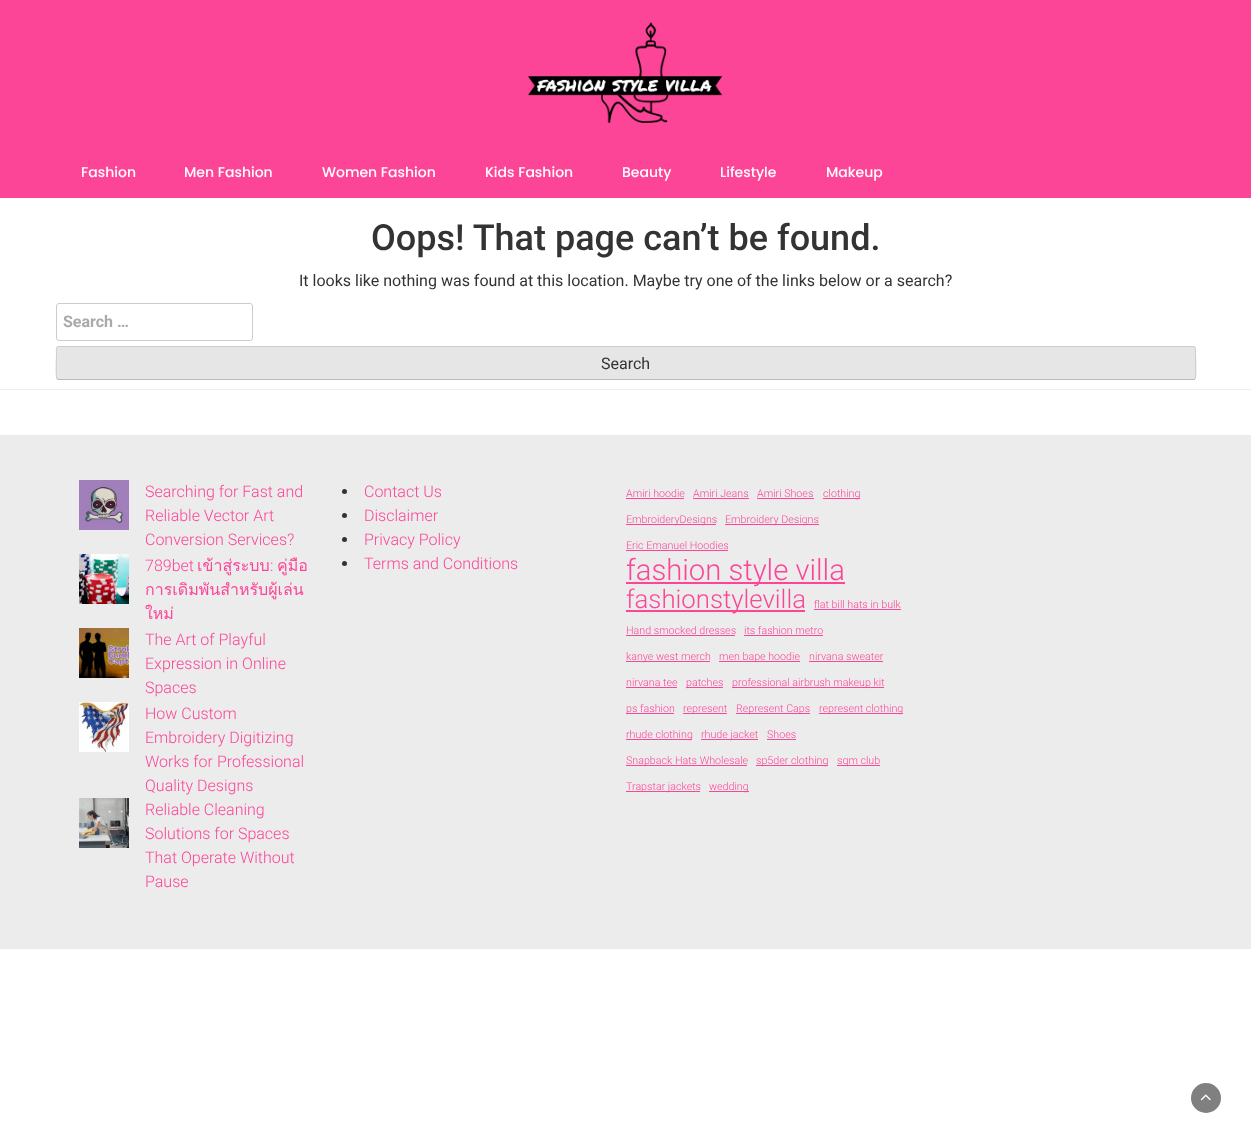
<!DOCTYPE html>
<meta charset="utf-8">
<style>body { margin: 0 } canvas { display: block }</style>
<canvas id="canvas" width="1251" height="1143"></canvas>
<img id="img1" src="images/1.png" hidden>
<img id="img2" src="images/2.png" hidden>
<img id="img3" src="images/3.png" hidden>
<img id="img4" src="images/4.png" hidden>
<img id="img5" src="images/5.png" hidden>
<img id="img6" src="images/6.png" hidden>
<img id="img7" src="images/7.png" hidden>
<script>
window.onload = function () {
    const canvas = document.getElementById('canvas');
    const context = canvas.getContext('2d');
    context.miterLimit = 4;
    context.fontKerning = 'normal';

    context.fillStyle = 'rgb(255, 255, 255)';
    context.fillRect(0, 0, 1251, 1143);
    context.fillStyle = 'rgb(253, 69, 151)';
    context.fillRect(0, 0, 1251, 198);
    context.drawImage(document.getElementById('img1'), 527, 22, 196, 101);
    context.fillStyle = 'rgb(238, 238, 238)';
    context.fillRect(0, 389, 1251, 1);
    context.beginPath();
    context.roundRect(56.5, 303.5, 196, 37, 2.5);
    context.strokeStyle = 'rgb(204, 204, 204)';
    context.stroke();
    context.fillStyle = 'rgb(230, 230, 230)';
    context.beginPath();
    context.roundRect(56, 346, 1140, 34, 3);
    context.fill();
    context.beginPath();
    context.moveTo(1195, 379);
    context.lineTo(1193, 379.5);
    context.lineTo(59, 379.5);
    context.lineTo(57, 379);
    context.strokeStyle = 'rgb(187, 187, 187)';
    context.stroke();
    context.beginPath();
    context.moveTo(57, 379);
    context.bezierCurveTo(55.5, 377, 56.5, 357.5, 56.5, 353.5);
    context.bezierCurveTo(56.5, 352, 55.5, 346.5, 59, 346.5);
    context.lineTo(1193, 346.5);
    context.bezierCurveTo(1196.5, 346.5, 1195.5, 352, 1195.5, 353.5);
    context.bezierCurveTo(1195.5, 357.5, 1196.5, 377, 1195, 379);
    context.strokeStyle = 'rgb(204, 204, 204)';
    context.stroke();
    context.fillStyle = 'rgb(236, 236, 236)';
    context.fillRect(0, 435, 1251, 514);
    context.drawImage(document.getElementById('img2'), 79, 480, 50, 50);
    context.drawImage(document.getElementById('img3'), 79, 554, 50, 50);
    context.drawImage(document.getElementById('img4'), 79, 628, 50, 50);
    context.drawImage(document.getElementById('img5'), 79, 702, 50, 50);
    context.drawImage(document.getElementById('img6'), 79, 798, 50, 50);
    context.fillStyle = 'rgb(51, 51, 51)';
    context.beginPath();
    context.arc(344.5, 491.5, 2.5, 0, 2 * Math.PI);
    context.fill();
    context.beginPath();
    context.arc(344.5, 515.5, 2.5, 0, 2 * Math.PI);
    context.fill();
    context.beginPath();
    context.arc(344.5, 539.5, 2.5, 0, 2 * Math.PI);
    context.fill();
    context.beginPath();
    context.arc(344.5, 563.5, 2.5, 0, 2 * Math.PI);
    context.fill();
    context.fillStyle = 'rgb(253, 69, 151)';
    context.fillRect(626, 498, 58, 1);
    context.fillRect(693, 498, 56, 1);
    context.fillRect(757, 498, 57, 1);
    context.fillRect(823, 498, 37, 1);
    context.fillRect(626, 524, 90, 1);
    context.fillRect(725, 524, 94, 1);
    context.fillRect(626, 550, 102, 1);
    context.fillRect(626, 582, 219, 2);
    context.fillRect(626, 610, 179, 2);
    context.fillRect(814, 609, 87, 1);
    context.fillRect(626, 635, 109, 1);
    context.fillRect(744, 635, 79, 1);
    context.fillRect(626, 661, 84, 1);
    context.fillRect(719, 661, 81, 1);
    context.fillRect(809, 661, 74, 1);
    context.fillRect(626, 687, 51, 1);
    context.fillRect(686, 687, 37, 1);
    context.fillRect(732, 687, 152, 1);
    context.fillRect(626, 713, 48, 1);
    context.fillRect(683, 713, 44, 1);
    context.fillRect(736, 713, 74, 1);
    context.fillRect(819, 713, 84, 1);
    context.fillRect(626, 739, 66, 1);
    context.fillRect(701, 739, 57, 1);
    context.fillRect(767, 739, 29, 1);
    context.fillRect(626, 765, 121, 1);
    context.fillRect(756, 765, 72, 1);
    context.fillRect(837, 765, 43, 1);
    context.fillRect(626, 791, 74, 1);
    context.fillRect(709, 791, 40, 1);
    context.fillStyle = 'rgb(128, 128, 128)';
    context.beginPath();
    context.arc(1206, 1098, 15, 0, 2 * Math.PI);
    context.fill();
    context.drawImage(document.getElementById('img7'), 1200, 1094, 11, 7);
    context.font = '500 14px Poppins';
    context.fillStyle = 'rgb(255, 255, 255)';
    context.fillText('Fashion', 81, 177);
    context.fillText('Men Fashion', 184, 177);
    context.fillText('Women Fashion', 322, 177);
    context.fillText('Kids Fashion', 485, 177);
    context.fillText('Beauty', 622, 177);
    context.fillText('Lifestyle', 720, 177);
    context.fillText('Makeup', 826, 177);
    context.font = '500 36px Roboto';
    context.fillStyle = 'rgb(51, 51, 51)';
    context.fillText('Oops! That page can’t be found.', 371, 250);
    context.font = '16px Roboto';
    context.fillText('It looks like nothing was found at this location. Maybe try one of the links below or a search?', 299, 286);
    context.font = 'bold 16px Roboto';
    context.fillStyle = 'rgb(170, 170, 170)';
    context.fillText('Search …', 63, 327);
    context.font = '16px Roboto';
    context.fillStyle = 'rgb(51, 51, 51)';
    context.fillText('Search', 601, 369);
    context.font = '300 16px Roboto';
    context.fillStyle = 'rgb(253, 69, 151)';
    context.fillText('Searching for Fast and', 145, 497);
    context.fillText('Reliable Vector Art', 145, 521);
    context.fillText('Conversion Services?', 145, 545);
    context.fillText('789bet', 145, 571);
    context.font = '16px Loma';
    context.fillText('เข้าสู่ระบบ', 197, 571);
    context.font = '300 16px Roboto';
    context.fillText(':', 270, 571);
    context.font = '16px Loma';
    context.fillText('คู่มือ', 277, 571);
    context.fillText('การเดิมพันสำหรับผู้เล่น', 145, 595);
    context.fillText('ใหม่', 145, 619);
    context.font = '300 16px Roboto';
    context.fillText('The Art of Playful', 145, 645);
    context.fillText('Expression in Online', 145, 669);
    context.fillText('Spaces', 145, 693);
    context.fillText('How Custom', 145, 719);
    context.fillText('Embroidery Digitizing', 145, 743);
    context.fillText('Works for Professional', 145, 767);
    context.fillText('Quality Designs', 145, 791);
    context.fillText('Reliable Cleaning', 145, 815);
    context.fillText('Solutions for Spaces', 145, 839);
    context.fillText('That Operate Without', 145, 863);
    context.fillText('Pause', 145, 887);
    context.fillText('Contact Us', 364, 497);
    context.fillText('Disclaimer', 364, 521);
    context.fillText('Privacy Policy', 364, 545);
    context.fillText('Terms and Conditions', 364, 569);
    context.font = '300 10.7px Roboto';
    context.fillText('Amiri hoodie', 626, 497);
    context.fillText('Amiri Jeans', 693, 497);
    context.fillText('Amiri Shoes', 757, 497);
    context.fillText('clothing', 823, 497);
    context.fillText('EmbroideryDesigns', 626, 523);
    context.fillText('Embroidery Designs', 725, 523);
    context.fillText('Eric Emanuel Hoodies', 626, 549);
    context.font = '300 29.25px Roboto';
    context.fillText('fashion style villa', 626, 580);
    context.font = '300 25.75px Roboto';
    context.fillText('fashionstylevilla', 626, 608);
    context.font = '300 10.7px Roboto';
    context.fillText('flat bill hats in bulk', 814, 608);
    context.fillText('Hand smocked dresses', 626, 634);
    context.fillText('its fashion metro', 744, 634);
    context.fillText('kanye west merch', 626, 660);
    context.fillText('men bape hoodie', 719, 660);
    context.fillText('nirvana sweater', 809, 660);
    context.fillText('nirvana tee', 626, 686);
    context.fillText('patches', 686, 686);
    context.fillText('professional airbrush makeup kit', 732, 686);
    context.fillText('ps fashion', 626, 712);
    context.fillText('represent', 683, 712);
    context.fillText('Represent Caps', 736, 712);
    context.fillText('represent clothing', 819, 712);
    context.fillText('rhude clothing', 626, 738);
    context.fillText('rhude jacket', 701, 738);
    context.fillText('Shoes', 767, 738);
    context.fillText('Snapback Hats Wholesale', 626, 764);
    context.fillText('sp5der clothing', 756, 764);
    context.fillText('sqm club', 837, 764);
    context.fillText('Trapstar jackets', 626, 790);
    context.fillText('wedding', 709, 790);
};
</script>
